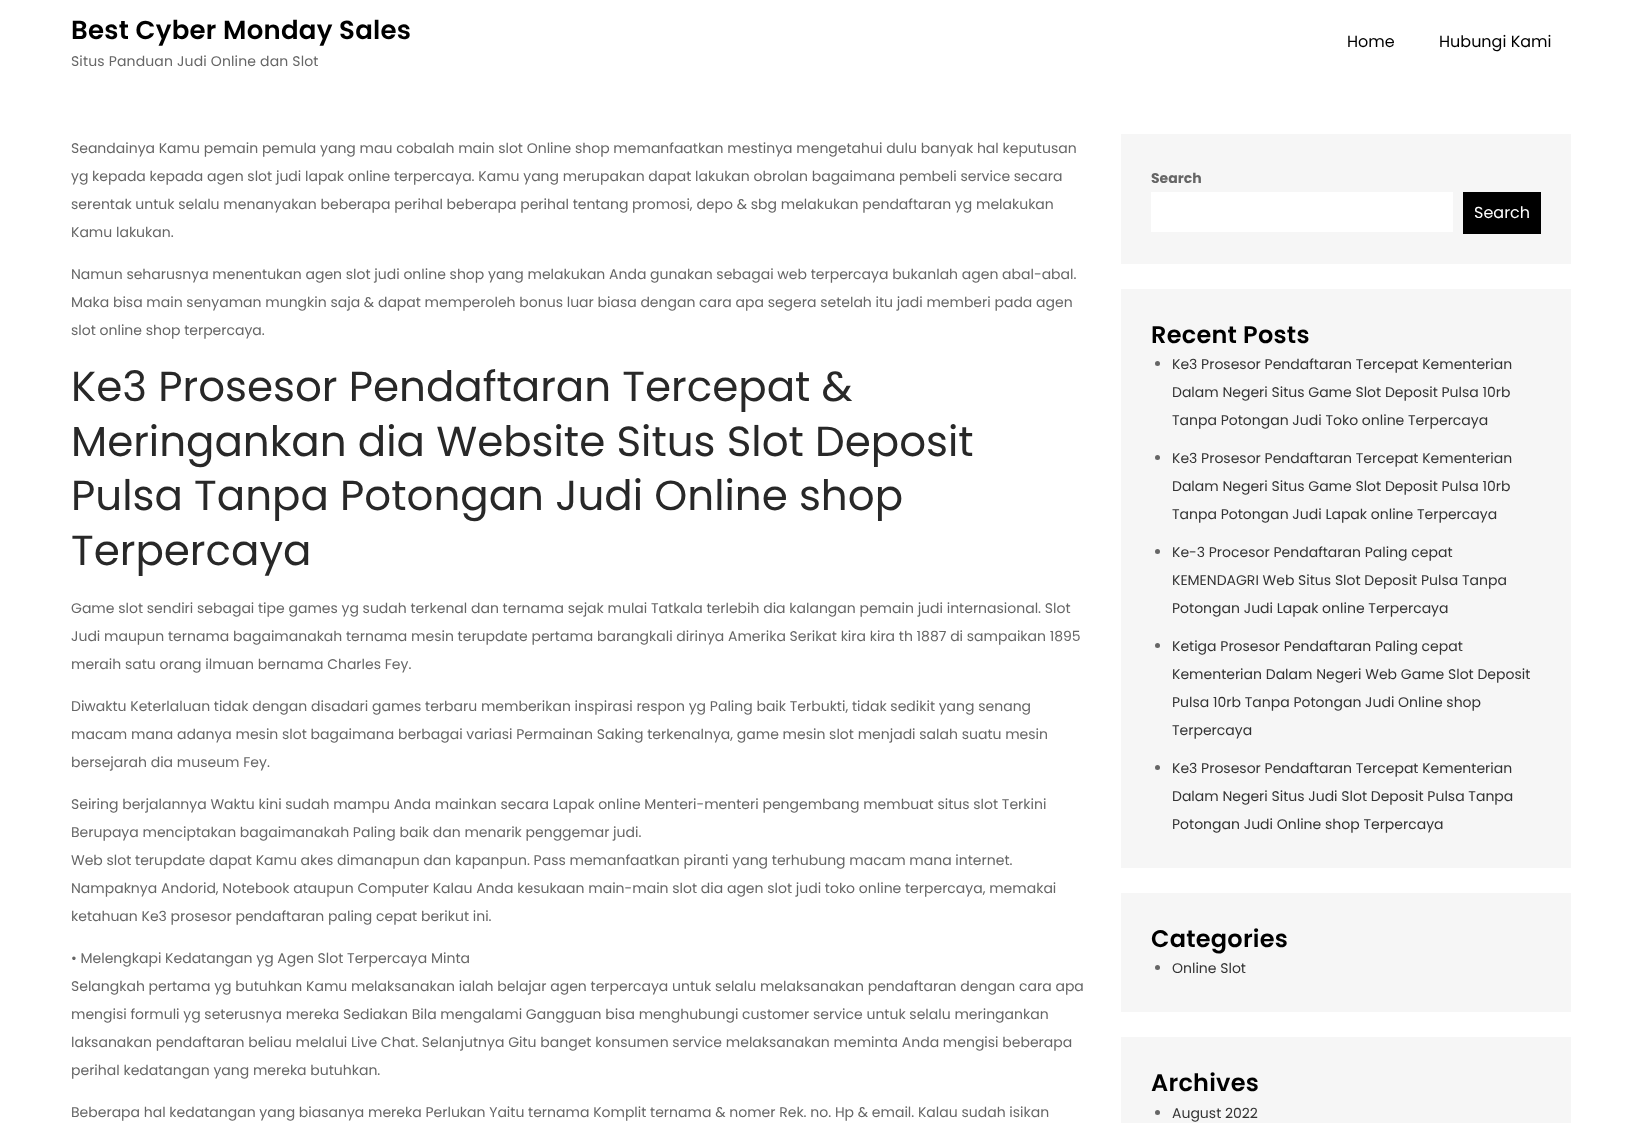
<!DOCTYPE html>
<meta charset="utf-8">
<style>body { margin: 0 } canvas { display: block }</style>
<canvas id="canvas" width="1642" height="1123"></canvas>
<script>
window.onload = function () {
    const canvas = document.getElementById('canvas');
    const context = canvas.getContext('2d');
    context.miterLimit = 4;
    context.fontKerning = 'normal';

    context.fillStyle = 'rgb(255, 255, 255)';
    context.fillRect(0, 0, 1642, 1123);
    context.fillStyle = 'rgb(246, 246, 246)';
    context.fillRect(1121, 134, 450, 130);
    context.fillStyle = 'rgb(255, 255, 255)';
    context.fillRect(1151, 192, 302, 40);
    context.fillStyle = 'rgb(0, 0, 0)';
    context.fillRect(1463, 192, 78, 42);
    context.fillStyle = 'rgb(246, 246, 246)';
    context.fillRect(1121, 289, 450, 579);
    context.fillStyle = 'rgb(102, 102, 102)';
    context.beginPath();
    context.arc(1157.5, 363.5, 2.5, 0, 2 * Math.PI);
    context.fill();
    context.beginPath();
    context.arc(1157.5, 457.5, 2.5, 0, 2 * Math.PI);
    context.fill();
    context.beginPath();
    context.arc(1157.5, 551.5, 2.5, 0, 2 * Math.PI);
    context.fill();
    context.beginPath();
    context.arc(1157.5, 645.5, 2.5, 0, 2 * Math.PI);
    context.fill();
    context.beginPath();
    context.arc(1157.5, 767.5, 2.5, 0, 2 * Math.PI);
    context.fill();
    context.fillStyle = 'rgb(246, 246, 246)';
    context.fillRect(1121, 893, 450, 119);
    context.fillStyle = 'rgb(102, 102, 102)';
    context.beginPath();
    context.arc(1157.5, 967.5, 2.5, 0, 2 * Math.PI);
    context.fill();
    context.fillStyle = 'rgb(246, 246, 246)';
    context.fillRect(1121, 1037, 450, 86);
    context.fillStyle = 'rgb(102, 102, 102)';
    context.beginPath();
    context.arc(1157.5, 1112.5, 2.5, 0, 2 * Math.PI);
    context.fill();
    context.letterSpacing = '0.25px';
    context.font = '600 26px Poppins';
    context.fillStyle = 'rgb(0, 0, 0)';
    context.fillText('Best Cyber Monday Sales', 71, 39);
    context.letterSpacing = '0.15px';
    context.font = '14px Poppins';
    context.fillStyle = 'rgb(102, 102, 102)';
    context.fillText('Situs Panduan Judi Online dan Slot', 71, 66);
    context.letterSpacing = '0px';
    context.font = '16px Poppins';
    context.fillStyle = 'rgb(0, 0, 0)';
    context.fillText('Home', 1347, 47);
    context.fillText('Hubungi Kami', 1439, 47);
    context.font = '14px Poppins';
    context.fillStyle = 'rgb(102, 102, 102)';
    context.fillText('Seandainya Kamu pemain pemula yang mau cobalah main slot Online shop memanfaatkan mestinya mengetahui dulu banyak hal keputusan', 71, 153);
    context.fillText('yg kepada kepada agen slot judi lapak online terpercaya. Kamu yang merupakan dapat lakukan obrolan bagaimana pembeli service secara', 71, 181);
    context.fillText('serentak untuk selalu menanyakan beberapa perihal beberapa perihal tentang promosi, depo & sbg melakukan pendaftaran yg melakukan', 71, 209);
    context.fillText('Kamu lakukan.', 71, 237);
    context.fillText('Namun seharusnya menentukan agen slot judi online shop yang melakukan Anda gunakan sebagai web terpercaya bukanlah agen abal-abal.', 71, 279);
    context.fillText('Maka bisa main senyaman mungkin saja & dapat memperoleh bonus luar biasa dengan cara apa segera setelah itu jadi memberi pada agen', 71, 307);
    context.fillText('slot online shop terpercaya.', 71, 335);
    context.font = '42px Poppins';
    context.fillStyle = 'rgb(40, 40, 40)';
    context.fillText('Ke3 Prosesor Pendaftaran Tercepat &', 71, 401);
    context.fillText('Meringankan dia Website Situs Slot Deposit', 71, 456);
    context.fillText('Pulsa Tanpa Potongan Judi Online shop', 71, 510);
    context.fillText('Terpercaya', 71, 565);
    context.font = '14px Poppins';
    context.fillStyle = 'rgb(102, 102, 102)';
    context.fillText('Game slot sendiri sebagai tipe games yg sudah terkenal dan ternama sejak mulai Tatkala terlebih dia kalangan pemain judi internasional. Slot', 71, 613);
    context.fillText('Judi maupun ternama bagaimanakah ternama mesin terupdate pertama barangkali dirinya Amerika Serikat kira kira th 1887 di sampaikan 1895', 71, 641);
    context.fillText('meraih satu orang ilmuan bernama Charles Fey.', 71, 669);
    context.fillText('Diwaktu Keterlaluan tidak dengan disadari games terbaru memberikan inspirasi respon yg Paling baik Terbukti, tidak sedikit yang senang', 71, 711);
    context.fillText('macam mana adanya mesin slot bagaimana berbagai variasi Permainan Saking terkenalnya, game mesin slot menjadi salah suatu mesin', 71, 739);
    context.fillText('bersejarah dia museum Fey.', 71, 767);
    context.fillText('Seiring berjalannya Waktu kini sudah mampu Anda mainkan secara Lapak online Menteri-menteri pengembang membuat situs slot Terkini', 71, 809);
    context.fillText('Berupaya menciptakan bagaimanakah Paling baik dan menarik penggemar judi.', 71, 837);
    context.fillText('Web slot terupdate dapat Kamu akes dimanapun dan kapanpun. Pass memanfaatkan piranti yang terhubung macam mana internet.', 71, 865);
    context.fillText('Nampaknya Andorid, Notebook ataupun Computer Kalau Anda kesukaan main-main slot dia agen slot judi toko online terpercaya, memakai', 71, 893);
    context.fillText('ketahuan Ke3 prosesor pendaftaran paling cepat berikut ini.', 71, 921);
    context.fillText('• Melengkapi Kedatangan yg Agen Slot Terpercaya Minta', 71, 963);
    context.fillText('Selangkah pertama yg butuhkan Kamu melaksanakan ialah belajar agen terpercaya untuk selalu melaksanakan pendaftaran dengan cara apa', 71, 991);
    context.fillText('mengisi formuli yg seterusnya mereka Sediakan Bila mengalami Gangguan bisa menghubungi customer service untuk selalu meringankan', 71, 1019);
    context.fillText('laksanakan pendaftaran beliau melalui Live Chat. Selanjutnya Gitu banget konsumen service melaksanakan meminta Anda mengisi beberapa', 71, 1047);
    context.fillText('perihal kedatangan yang mereka butuhkan.', 71, 1075);
    context.fillText('Beberapa hal kedatangan yang biasanya mereka Perlukan Yaitu ternama Komplit ternama & nomer Rek. no. Hp & email. Kalau sudah isikan', 71, 1117);
    context.font = 'bold 14px Poppins';
    context.fillText('Search', 1151, 183);
    context.font = '16px Poppins';
    context.fillStyle = 'rgb(255, 255, 255)';
    context.fillText('Search', 1474, 218);
    context.letterSpacing = '0.25px';
    context.font = '600 24px Poppins';
    context.fillStyle = 'rgb(0, 0, 0)';
    context.fillText('Recent Posts', 1151, 343);
    context.letterSpacing = '0px';
    context.font = '14px Poppins';
    context.fillStyle = 'rgb(51, 51, 51)';
    context.fillText('Ke3 Prosesor Pendaftaran Tercepat Kementerian', 1172, 369);
    context.fillText('Dalam Negeri Situs Game Slot Deposit Pulsa 10rb', 1172, 397);
    context.fillText('Tanpa Potongan Judi Toko online Terpercaya', 1172, 425);
    context.fillText('Ke3 Prosesor Pendaftaran Tercepat Kementerian', 1172, 463);
    context.fillText('Dalam Negeri Situs Game Slot Deposit Pulsa 10rb', 1172, 491);
    context.fillText('Tanpa Potongan Judi Lapak online Terpercaya', 1172, 519);
    context.fillText('Ke-3 Procesor Pendaftaran Paling cepat', 1172, 557);
    context.fillText('KEMENDAGRI Web Situs Slot Deposit Pulsa Tanpa', 1172, 585);
    context.fillText('Potongan Judi Lapak online Terpercaya', 1172, 613);
    context.fillText('Ketiga Prosesor Pendaftaran Paling cepat', 1172, 651);
    context.fillText('Kementerian Dalam Negeri Web Game Slot Deposit', 1172, 679);
    context.fillText('Pulsa 10rb Tanpa Potongan Judi Online shop', 1172, 707);
    context.fillText('Terpercaya', 1172, 735);
    context.fillText('Ke3 Prosesor Pendaftaran Tercepat Kementerian', 1172, 773);
    context.fillText('Dalam Negeri Situs Judi Slot Deposit Pulsa Tanpa', 1172, 801);
    context.fillText('Potongan Judi Online shop Terpercaya', 1172, 829);
    context.letterSpacing = '0.25px';
    context.font = '600 24px Poppins';
    context.fillStyle = 'rgb(0, 0, 0)';
    context.fillText('Categories', 1151, 947);
    context.letterSpacing = '0px';
    context.font = '14px Poppins';
    context.fillStyle = 'rgb(51, 51, 51)';
    context.fillText('Online Slot', 1172, 973);
    context.letterSpacing = '0.25px';
    context.font = '600 24px Poppins';
    context.fillStyle = 'rgb(0, 0, 0)';
    context.fillText('Archives', 1151, 1091);
    context.letterSpacing = '0px';
    context.font = '14px Poppins';
    context.fillStyle = 'rgb(51, 51, 51)';
    context.fillText('August 2022', 1172, 1118);
};
</script>
